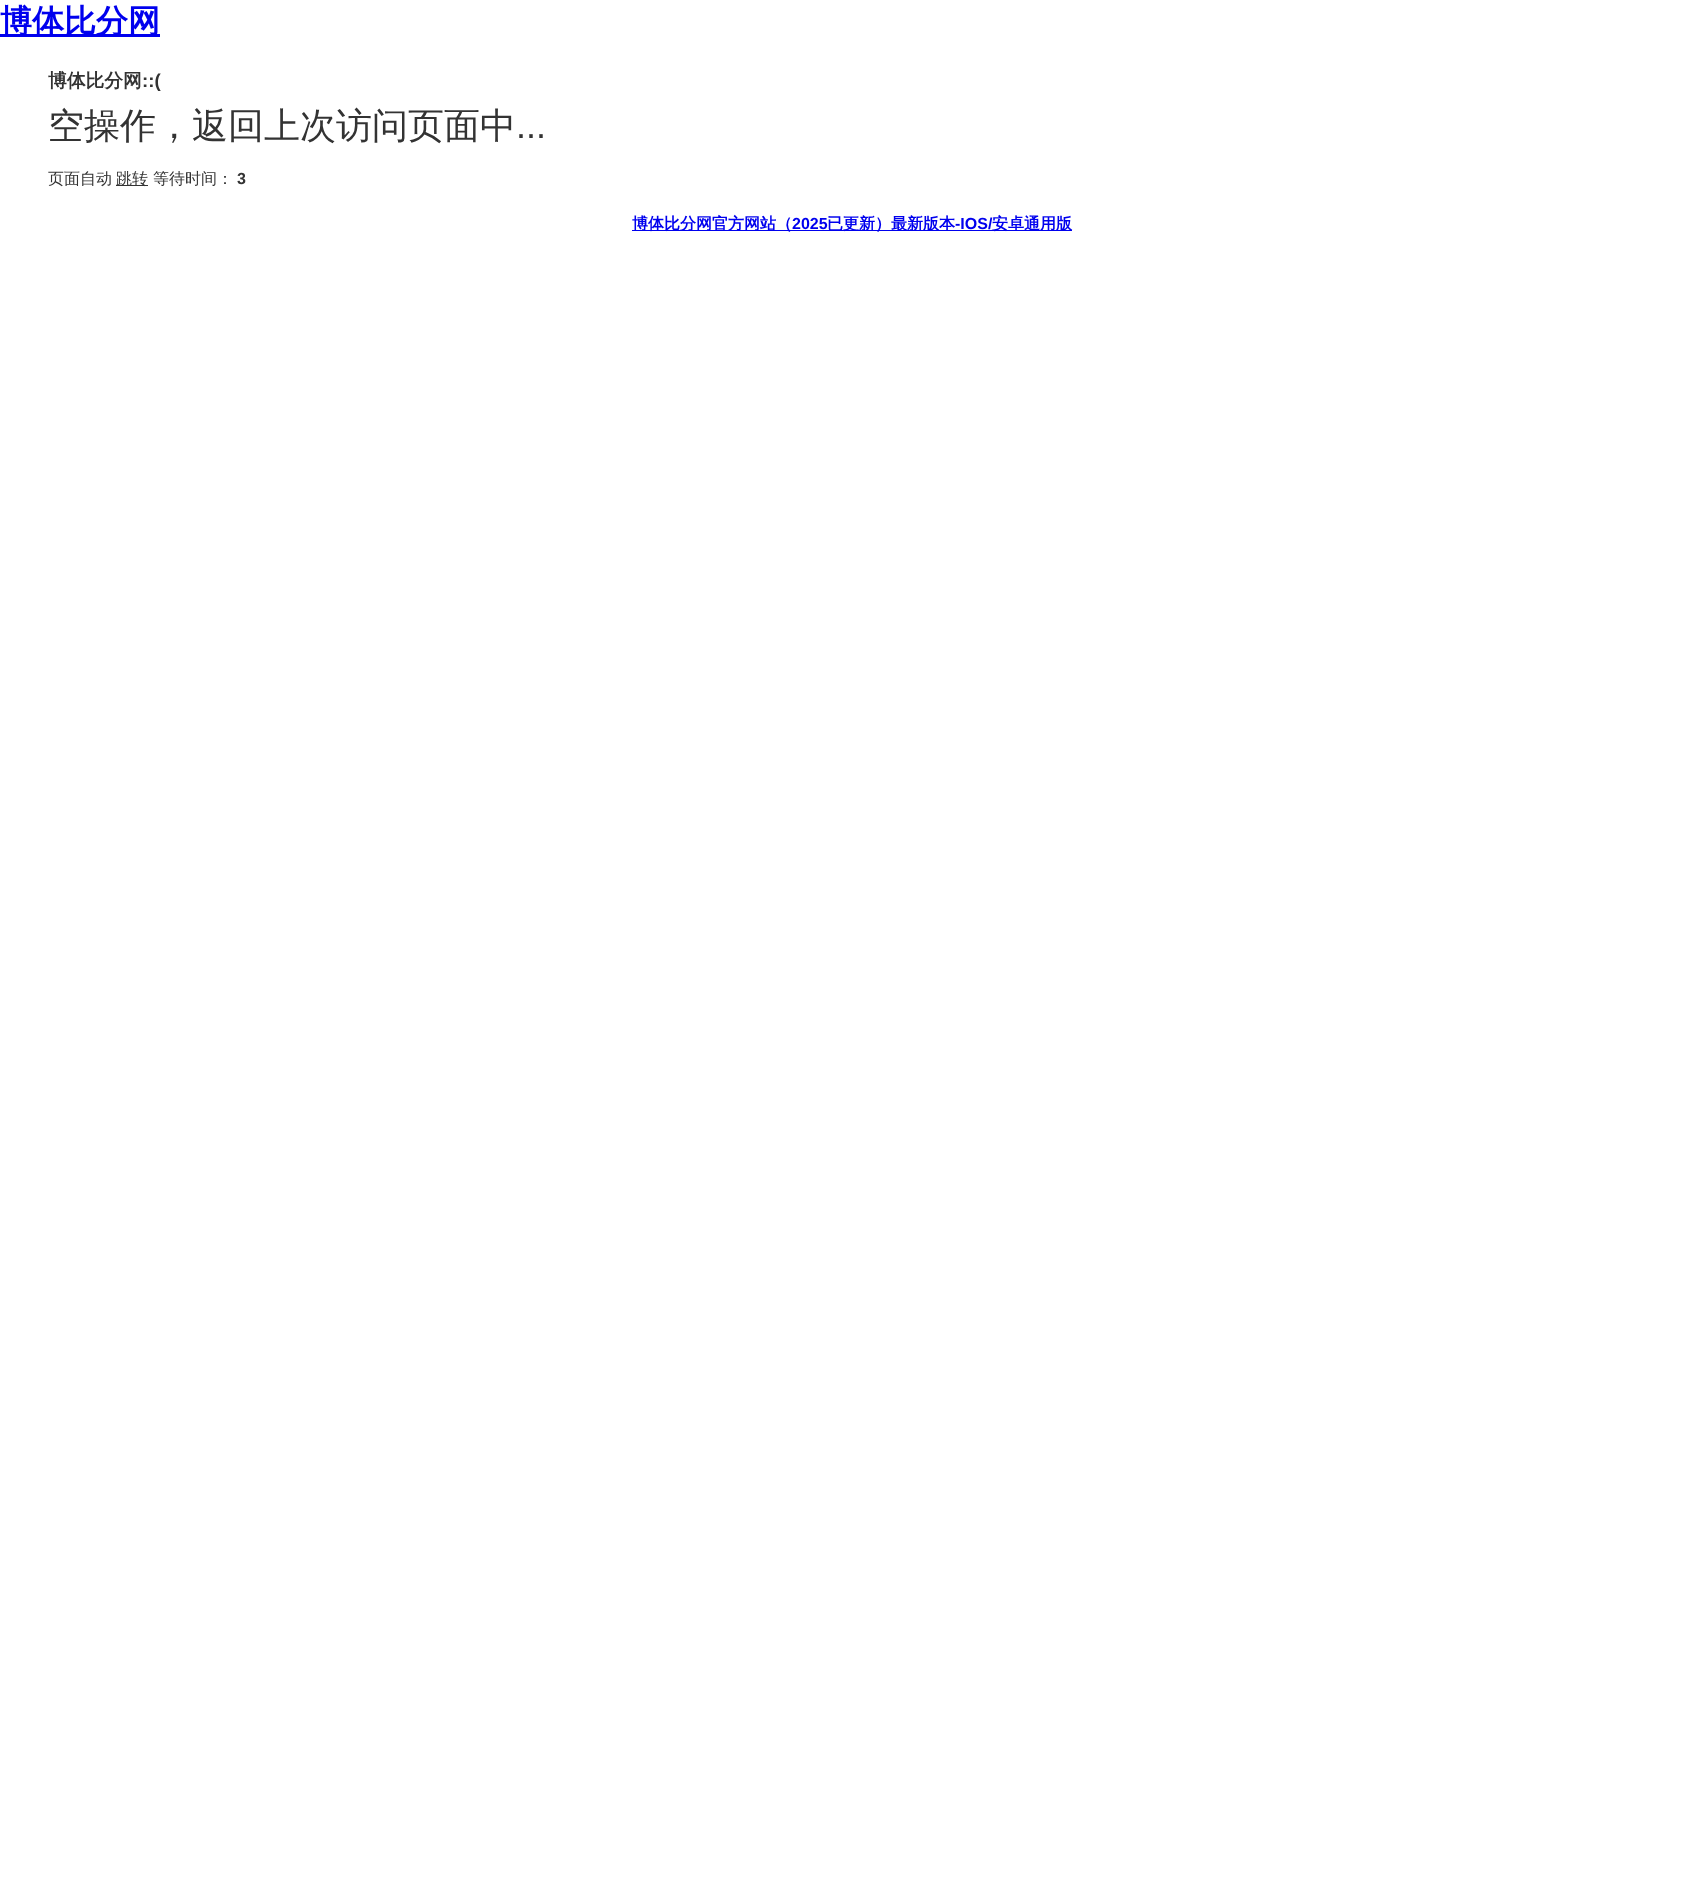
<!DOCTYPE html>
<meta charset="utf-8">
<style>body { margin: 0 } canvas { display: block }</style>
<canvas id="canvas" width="1704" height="1902"></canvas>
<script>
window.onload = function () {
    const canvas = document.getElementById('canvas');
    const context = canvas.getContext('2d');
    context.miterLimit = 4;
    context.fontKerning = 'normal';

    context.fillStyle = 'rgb(255, 255, 255)';
    context.fillRect(0, 0, 1704, 1902);
    context.fillStyle = 'rgb(0, 0, 238)';
    context.fillRect(0, 34, 160, 3);
    context.fillStyle = 'rgb(51, 51, 51)';
    context.fillRect(116, 185, 32, 1);
    context.fillStyle = 'rgb(0, 0, 238)';
    context.fillRect(632, 230, 440, 1);
    context.font = 'bold 32px WenQuanYi Zen Hei';
    context.fillText('博体比分网', 0, 32);
    context.font = 'bold 18.75px WenQuanYi Zen Hei';
    context.fillStyle = 'rgb(51, 51, 51)';
    context.fillText('博体比分网', 48, 87);
    context.font = 'bold 18.75px Liberation Sans';
    context.fillText('::(', 142, 87);
    context.font = '500 36px WenQuanYi Zen Hei';
    context.fillText('空操作，返回上次访问页面中', 48, 138);
    context.font = '36px Liberation Sans';
    context.fillText('...', 516, 138);
    context.font = '500 16px WenQuanYi Zen Hei';
    context.fillText('页面自动', 48, 184);
    context.fillText('跳转', 116, 184);
    context.fillText('等待时间：', 153, 184);
    context.font = 'bold 16px Liberation Sans';
    context.fillText('3', 237, 184);
    context.font = 'bold 16px WenQuanYi Zen Hei';
    context.fillStyle = 'rgb(0, 0, 238)';
    context.fillText('博体比分网官方网站（', 632, 229);
    context.font = 'bold 16px Liberation Sans';
    context.fillText('2025', 792, 229);
    context.font = 'bold 16px WenQuanYi Zen Hei';
    context.fillText('已更新）最新版本', 827, 229);
    context.font = 'bold 16px Liberation Sans';
    context.fillText('-IOS/', 955, 229);
    context.font = 'bold 16px WenQuanYi Zen Hei';
    context.fillText('安卓通用版', 992, 229);
};
</script>
